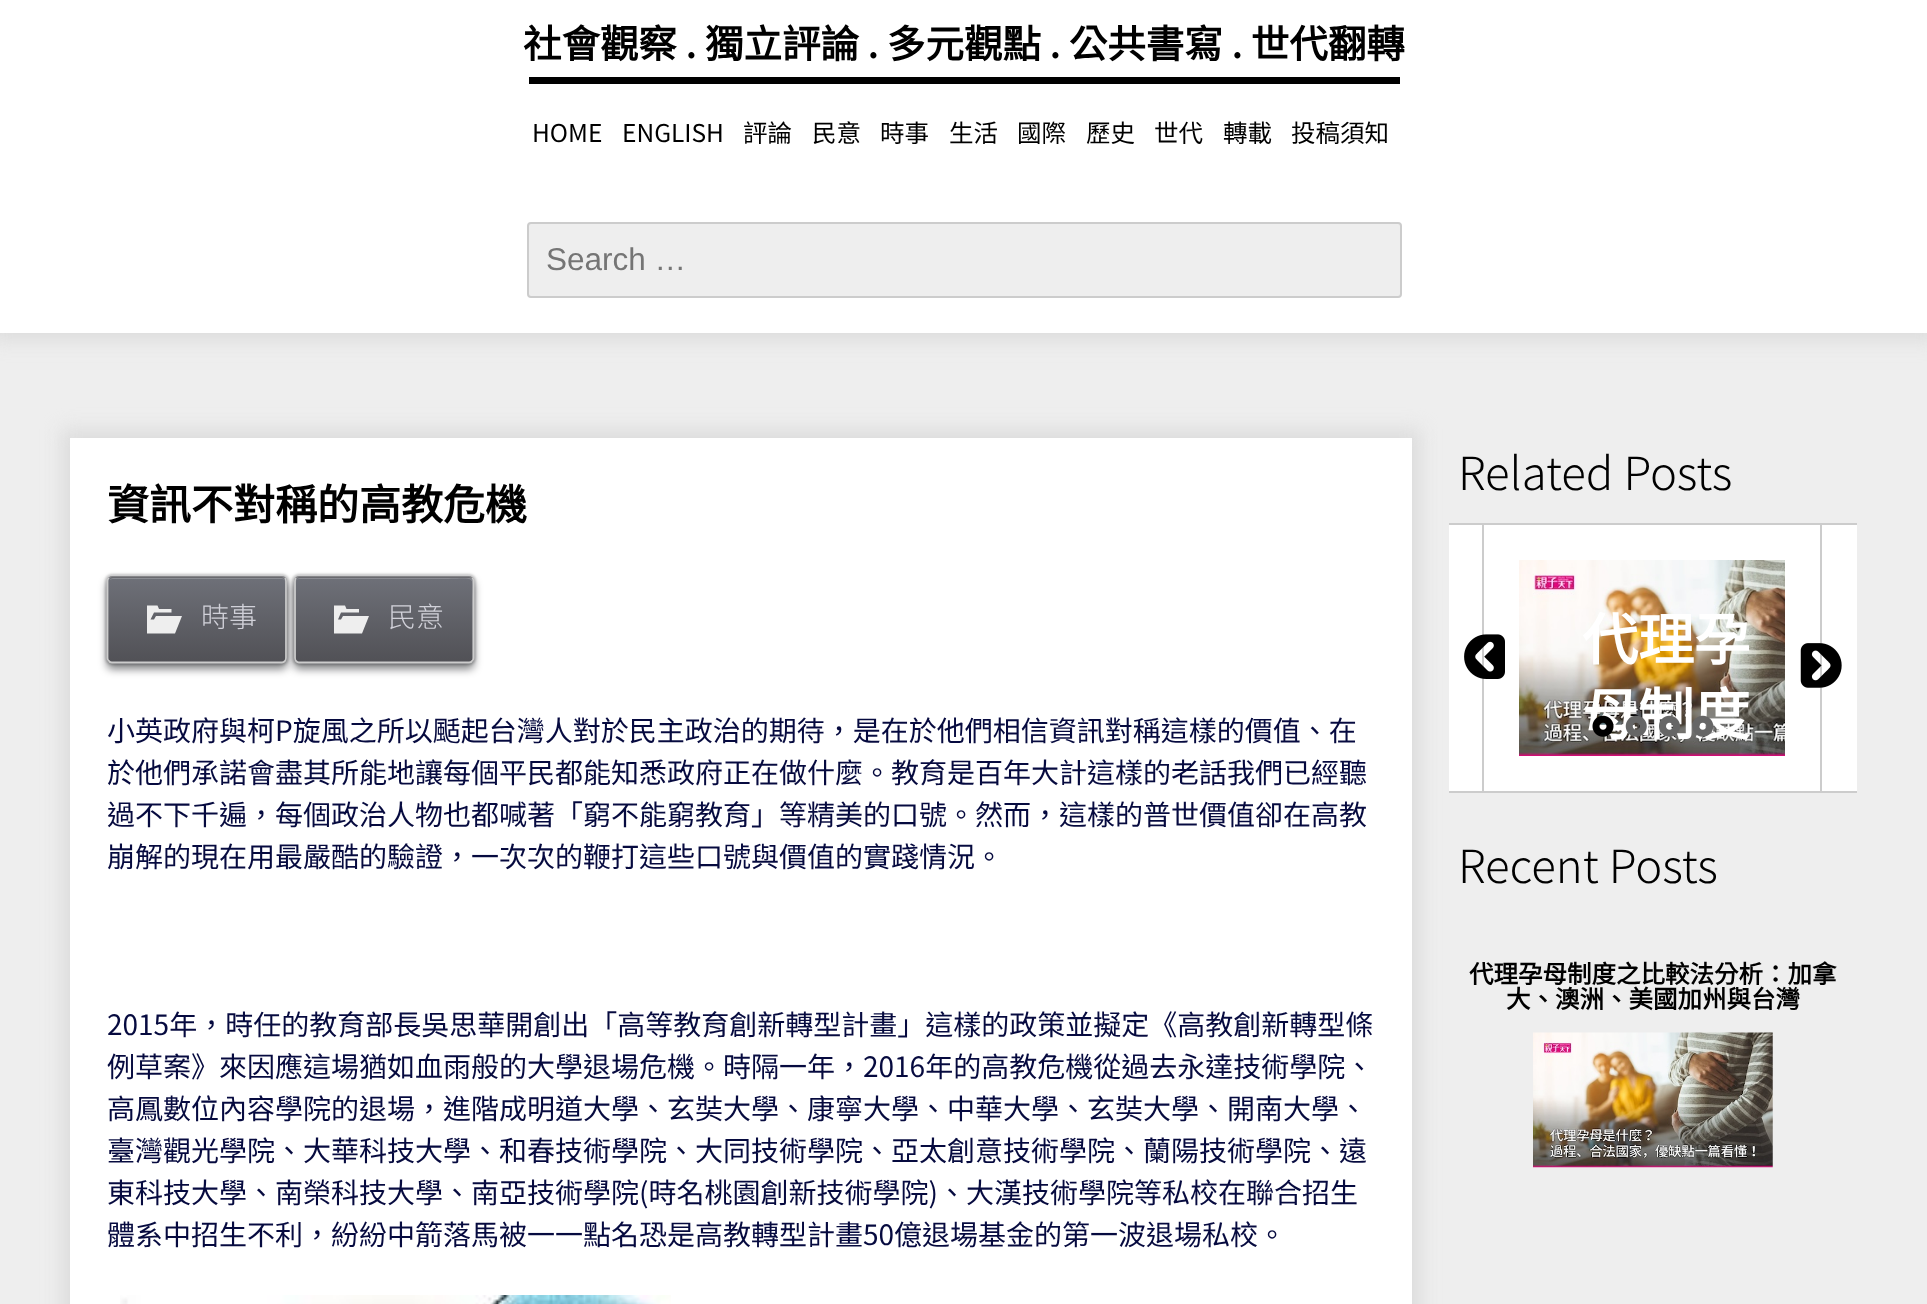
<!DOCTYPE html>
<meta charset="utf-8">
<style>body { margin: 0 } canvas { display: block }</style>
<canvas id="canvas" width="1927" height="1304"></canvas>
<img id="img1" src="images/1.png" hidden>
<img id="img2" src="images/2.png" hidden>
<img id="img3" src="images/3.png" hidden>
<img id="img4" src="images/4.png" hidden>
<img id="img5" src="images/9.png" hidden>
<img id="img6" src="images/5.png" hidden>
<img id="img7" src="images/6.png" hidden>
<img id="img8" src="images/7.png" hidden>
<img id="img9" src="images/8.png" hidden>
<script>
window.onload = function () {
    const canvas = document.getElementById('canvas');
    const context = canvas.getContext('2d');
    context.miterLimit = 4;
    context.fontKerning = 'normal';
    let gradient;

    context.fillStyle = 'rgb(238, 238, 238)';
    context.fillRect(0, 0, 1927, 1304);
    context.fillStyle = 'rgb(255, 255, 255)';
    context.fillRect(0, 0, 1927, 77);
    context.fillStyle = 'rgb(221, 221, 221)';
    context.filter = 'blur(9px)';
    context.beginPath();
    context.rect(-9, 179, 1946, 162);
    context.fill();
    context.filter = 'none';
    context.fillStyle = 'rgb(255, 255, 255)';
    context.fillRect(0, 77, 1927, 256);
    context.fillStyle = 'rgb(0, 0, 0)';
    context.fillRect(529, 77, 871, 7);
    context.fillStyle = 'rgb(238, 238, 238)';
    context.beginPath();
    context.roundRect(528, 223, 873, 74, 3);
    context.fill();
    context.strokeStyle = 'rgb(204, 204, 204)';
    context.lineWidth = 2;
    context.stroke();
    context.fillStyle = 'rgb(221, 221, 221)';
    context.filter = 'blur(9px)';
    context.beginPath();
    context.rect(61, 429, 1360, 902);
    context.fill();
    context.filter = 'none';
    context.fillStyle = 'rgb(255, 255, 255)';
    context.fillRect(70, 438, 1342, 866);
    context.fillStyle = 'rgba(0, 1, 6, 0.2)';
    context.filter = 'blur(1px)';
    context.beginPath();
    context.roundRect(105, 574, 184, 91, 7);
    context.fill();
    context.filter = 'none';
    context.fillStyle = 'rgba(0, 1, 6, 0.5)';
    context.filter = 'blur(4.5px)';
    context.beginPath();
    context.roundRect(107, 581, 180, 88, 5);
    context.fill();
    context.filter = 'none';
    context.save();
    context.beginPath();
    context.roundRect(107, 576, 180, 87, 5);
    context.clip();
    gradient = context.createLinearGradient(197, 494, 197, 578);
    gradient.addColorStop(0, 'rgb(110, 112, 120)');
    gradient.addColorStop(1, 'rgb(81, 81, 86)');
    context.fillStyle = gradient;
    context.fillRect(107, 576, 180, 2);
    gradient = context.createLinearGradient(197, 578, 197, 662);
    gradient.addColorStop(0, 'rgb(110, 112, 120)');
    gradient.addColorStop(1, 'rgb(81, 81, 86)');
    context.fillStyle = gradient;
    context.fillRect(107, 578, 180, 84);
    context.restore();
    context.fillStyle = 'rgb(139, 141, 147)';
    context.beginPath();
    context.moveTo(112, 579);
    context.lineTo(282, 579);
    context.bezierCurveTo(284, 579, 285, 581, 285, 583);
    context.lineTo(285, 582);
    context.bezierCurveTo(285, 580, 283, 578, 281, 578);
    context.lineTo(113, 578);
    context.bezierCurveTo(112, 578, 110, 579, 110, 580);
    context.closePath();
    context.fill();
    context.beginPath();
    context.moveTo(109, 578);
    context.bezierCurveTo(109.5, 577, 111, 576.5, 112, 576.5);
    context.lineTo(282, 576.5);
    context.bezierCurveTo(283, 576.5, 284, 577, 285, 578);
    context.strokeStyle = 'rgba(255, 255, 255, 0.3)';
    context.lineWidth = 1.8;
    context.stroke();
    context.beginPath();
    context.moveTo(285, 578);
    context.bezierCurveTo(285.5, 578.5, 286, 580, 286, 581);
    context.lineTo(286, 658);
    context.bezierCurveTo(286, 659, 285.5, 660.5, 285, 661);
    context.bezierCurveTo(284, 662, 283, 662.5, 282, 662.5);
    context.lineTo(112, 662.5);
    context.bezierCurveTo(111, 662.5, 109.5, 662, 109, 661);
    context.bezierCurveTo(108, 660.5, 107.5, 659, 107.5, 658);
    context.lineTo(107.5, 581);
    context.bezierCurveTo(107.5, 580, 108, 578.5, 109, 578);
    context.strokeStyle = 'rgb(204, 204, 204)';
    context.stroke();
    context.fillStyle = 'rgb(238, 238, 238)';
    context.beginPath();
    context.moveTo(156, 616);
    context.lineTo(182, 616);
    context.lineTo(175, 633.5);
    context.lineTo(147, 633.5);
    context.lineTo(147, 605.5);
    context.lineTo(157.5, 605.5);
    context.lineTo(159, 609);
    context.lineTo(171.5, 609);
    context.lineTo(171.5, 612.5);
    context.lineTo(154, 612.5);
    context.lineTo(150.5, 619.5);
    context.lineTo(154, 619.5);
    context.closePath();
    context.fill();
    context.fillStyle = 'rgba(0, 1, 6, 0.2)';
    context.filter = 'blur(1px)';
    context.beginPath();
    context.roundRect(292, 574, 184, 91, 7);
    context.fill();
    context.filter = 'none';
    context.fillStyle = 'rgba(0, 1, 6, 0.5)';
    context.filter = 'blur(4.5px)';
    context.beginPath();
    context.roundRect(294, 581, 180, 88, 5);
    context.fill();
    context.filter = 'none';
    context.save();
    context.beginPath();
    context.roundRect(294, 576, 180, 87, 5);
    context.clip();
    gradient = context.createLinearGradient(384, 494, 384, 578);
    gradient.addColorStop(0, 'rgb(110, 112, 120)');
    gradient.addColorStop(1, 'rgb(81, 81, 86)');
    context.fillStyle = gradient;
    context.fillRect(294, 576, 180, 2);
    gradient = context.createLinearGradient(384, 578, 384, 662);
    gradient.addColorStop(0, 'rgb(110, 112, 120)');
    gradient.addColorStop(1, 'rgb(81, 81, 86)');
    context.fillStyle = gradient;
    context.fillRect(294, 578, 180, 84);
    context.restore();
    context.fillStyle = 'rgba(255, 255, 255, 0.2)';
    context.beginPath();
    context.moveTo(299, 579);
    context.lineTo(441, 579);
    context.bezierCurveTo(480, 579, 472, 572, 472, 609);
    context.lineTo(472, 661);
    context.bezierCurveTo(473, 660, 473, 659, 473, 658);
    context.lineTo(473, 582);
    context.bezierCurveTo(473, 580, 471, 578, 469, 578);
    context.lineTo(300, 578);
    context.bezierCurveTo(298, 578, 296, 580, 296, 582);
    context.lineTo(296, 583);
    context.bezierCurveTo(296, 581, 297, 579, 299, 579);
    context.closePath();
    context.fill();
    context.beginPath();
    context.moveTo(296, 578);
    context.bezierCurveTo(297, 577, 298, 576.5, 299, 576.5);
    context.lineTo(469, 576.5);
    context.bezierCurveTo(470, 576.5, 471.5, 577, 472, 578);
    context.strokeStyle = 'rgba(255, 255, 255, 0.3)';
    context.stroke();
    context.beginPath();
    context.moveTo(472, 578);
    context.bezierCurveTo(473, 578.5, 473.5, 580, 473.5, 581);
    context.lineTo(473.5, 658);
    context.bezierCurveTo(473.5, 659, 473, 660.5, 472, 661);
    context.bezierCurveTo(471.5, 662, 470, 662.5, 469, 662.5);
    context.lineTo(299, 662.5);
    context.bezierCurveTo(298, 662.5, 297, 662, 296, 661);
    context.bezierCurveTo(295.5, 660.5, 295, 659, 295, 658);
    context.lineTo(295, 581);
    context.bezierCurveTo(295, 580, 295.5, 578.5, 296, 578);
    context.strokeStyle = 'rgb(204, 204, 204)';
    context.stroke();
    context.fillStyle = 'rgb(238, 238, 238)';
    context.beginPath();
    context.moveTo(343, 616);
    context.lineTo(369, 616);
    context.lineTo(362, 633.5);
    context.lineTo(334, 633.5);
    context.lineTo(334, 605.5);
    context.lineTo(345, 605.5);
    context.lineTo(346.5, 609);
    context.lineTo(359, 609);
    context.lineTo(359, 612.5);
    context.lineTo(341, 612.5);
    context.lineTo(338, 619.5);
    context.lineTo(341, 619.5);
    context.closePath();
    context.fill();
    context.drawImage(document.getElementById('img1'), 120, 1295, 551, 9);
    context.fillStyle = 'rgb(255, 255, 255)';
    context.fillRect(1449, 525, 33, 266);
    context.fillStyle = 'rgb(204, 204, 204)';
    context.fillRect(1449, 523, 408, 2);
    context.fillRect(1482, 523, 2, 270);
    context.fillStyle = 'rgb(255, 255, 255)';
    context.fillRect(1484, 525, 336, 266);
    context.drawImage(document.getElementById('img2'), 1464, 634, 41, 45);
    context.fillStyle = 'rgb(204, 204, 204)';
    context.fillRect(1449, 791, 35, 2);
    context.fillRect(1820, 523, 2, 270);
    context.fillRect(1484, 791, 373, 2);
    context.drawImage(document.getElementById('img3'), 1519, 560, 266, 196);
    context.fillStyle = 'rgb(255, 255, 255)';
    context.fillRect(1822, 525, 35, 266);
    context.drawImage(document.getElementById('img4'), 1800, 643, 42, 45);
    context.drawImage(document.getElementById('img5'), 1533, 1032, 240, 136);
    context.font = 'bold 38.5px Noto Sans TC';
    context.fillStyle = 'rgb(0, 0, 0)';
    context.fillText('社會觀察 . 獨立評論 . 多元觀點 . 公共書寫 . 世代翻轉', 523, 58);
    context.font = '24.5px Noto Sans TC';
    context.fillText('HOME', 532, 142);
    context.fillText('ENGLISH', 622, 142);
    context.fillText('評論', 743, 142);
    context.fillText('民意', 812, 142);
    context.fillText('時事', 880, 142);
    context.fillText('生活', 949, 142);
    context.fillText('國際', 1017, 142);
    context.fillText('歷史', 1086, 142);
    context.fillText('世代', 1154, 142);
    context.fillText('轉載', 1223, 142);
    context.fillText('投稿須知', 1291, 142);
    context.font = '31.5px Liberation Sans';
    context.fillStyle = 'rgb(117, 117, 117)';
    context.fillText('Search …', 546, 270);
    context.font = 'bold 42px Noto Sans TC';
    context.fillStyle = 'rgb(0, 0, 0)';
    context.fillText('資訊不對稱的高教危機', 107, 520);
    context.font = '300 28px Noto Sans TC';
    context.fillStyle = 'rgb(209, 209, 217)';
    context.fillText('時事', 201, 627);
    context.fillText('民意', 388, 627);
    context.font = '28px Noto Sans TC';
    context.fillStyle = 'rgb(6, 10, 63)';
    context.fillText('小英政府與柯P旋風之所以颳起台灣人對於民主政治的期待，是在於他們相信資訊對稱這樣的價值、在', 107, 741);
    context.fillText('於他們承諾會盡其所能地讓每個平民都能知悉政府正在做什麼。教育是百年大計這樣的老話我們已經聽', 107, 783);
    context.fillText('過不下千遍，每個政治人物也都喊著「窮不能窮教育」等精美的口號。然而，這樣的普世價值卻在高教', 107, 825);
    context.fillText('崩解的現在用最嚴酷的驗證，一次次的鞭打這些口號與價值的實踐情況。', 107, 867);
    context.fillText('2015年，時任的教育部長吳思華開創出「高等教育創新轉型計畫」這樣的政策並擬定《高教創新轉型條', 107, 1035);
    context.fillText('例草案》來因應這場猶如血雨般的大學退場危機。時隔一年，2016年的高教危機從過去永達技術學院、', 107, 1077);
    context.fillText('高鳳數位內容學院的退場，進階成明道大學、玄奘大學、康寧大學、中華大學、玄奘大學、開南大學、', 107, 1119);
    context.fillText('臺灣觀光學院、大華科技大學、和春技術學院、大同技術學院、亞太創意技術學院、蘭陽技術學院、遠', 107, 1161);
    context.fillText('東科技大學、南榮科技大學、南亞技術學院(時名桃園創新技術學院)、大漢技術學院等私校在聯合招生', 107, 1203);
    context.fillText('體系中招生不利，紛紛中箭落馬被一一點名恐是高教轉型計畫50億退場基金的第一波退場私校。', 107, 1245);
    context.font = '300 45.5px Noto Sans TC';
    context.fillStyle = 'rgb(0, 0, 0)';
    context.fillText('Related Posts', 1458, 490);
    context.font = 'bold 56px Noto Sans TC';
    context.fillStyle = 'rgb(255, 255, 255)';
    context.fillText('代理孕', 1582, 660);
    context.fillText('母制度', 1582, 735);
    context.drawImage(document.getElementById('img6'), 1592, 715, 22, 22);
    context.drawImage(document.getElementById('img7'), 1625, 715, 22, 22);
    context.drawImage(document.getElementById('img8'), 1659, 715, 21, 22);
    context.drawImage(document.getElementById('img9'), 1692, 715, 22, 22);
    context.font = '300 45.5px Noto Sans TC';
    context.fillStyle = 'rgb(0, 0, 0)';
    context.fillText('Recent Posts', 1458, 883);
    context.font = 'bold 24.5px Noto Sans TC';
    context.fillText('代理孕母制度之比較法分析：加拿', 1469, 983);
    context.fillText('大、澳洲、美國加州與台灣', 1506, 1008);
};
</script>
